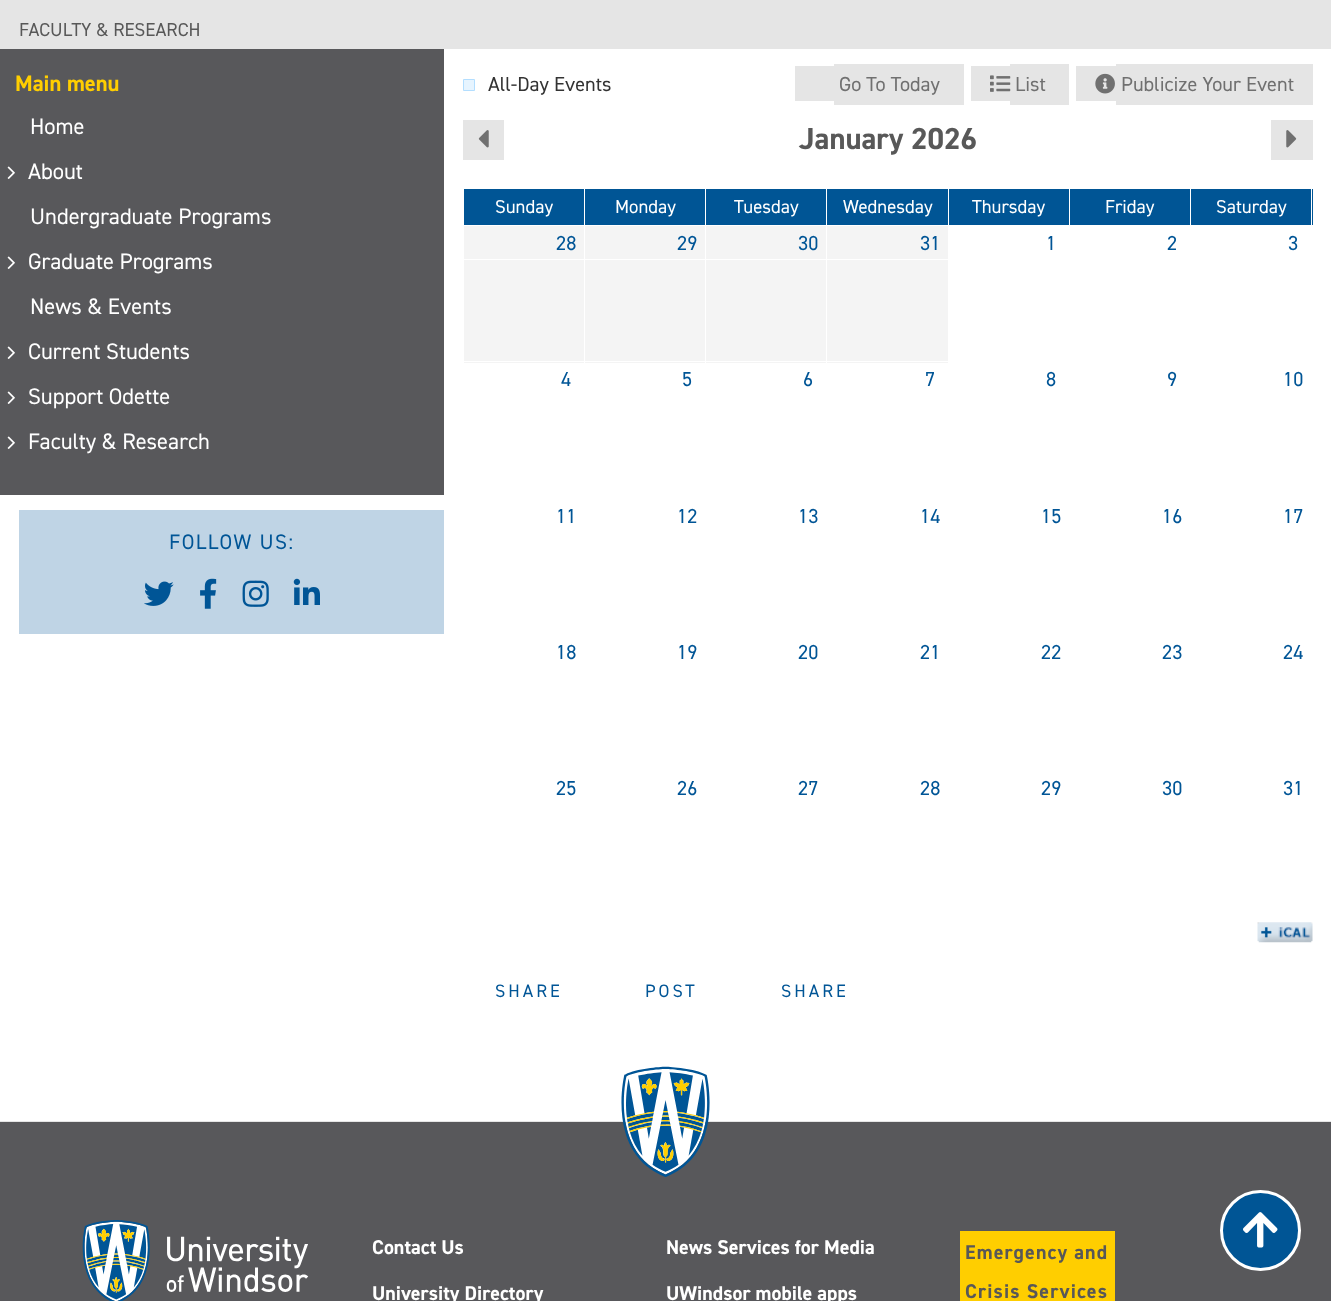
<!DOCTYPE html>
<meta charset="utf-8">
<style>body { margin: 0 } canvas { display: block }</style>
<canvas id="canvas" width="1331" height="1301"></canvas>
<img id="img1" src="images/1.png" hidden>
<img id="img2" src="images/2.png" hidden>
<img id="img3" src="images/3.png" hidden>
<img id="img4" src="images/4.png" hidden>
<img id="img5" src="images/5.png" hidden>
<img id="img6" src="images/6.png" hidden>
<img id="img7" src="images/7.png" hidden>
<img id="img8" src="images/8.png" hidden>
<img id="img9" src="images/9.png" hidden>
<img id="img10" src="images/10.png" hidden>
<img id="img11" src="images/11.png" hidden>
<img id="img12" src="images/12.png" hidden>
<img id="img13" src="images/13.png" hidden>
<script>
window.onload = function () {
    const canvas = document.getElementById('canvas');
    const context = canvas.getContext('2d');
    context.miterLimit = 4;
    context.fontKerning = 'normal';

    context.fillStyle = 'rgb(255, 255, 255)';
    context.fillRect(0, 0, 1331, 1301);
    context.fillStyle = 'rgb(229, 229, 229)';
    context.fillRect(0, 0, 1331, 49);
    context.fillStyle = 'rgb(88, 88, 91)';
    context.fillRect(0, 49, 444, 446);
    context.drawImage(document.getElementById('img1'), 7, 166, 8, 13);
    context.drawImage(document.getElementById('img1'), 7, 256, 8, 13);
    context.drawImage(document.getElementById('img1'), 7, 346, 8, 13);
    context.drawImage(document.getElementById('img1'), 7, 391, 8, 13);
    context.drawImage(document.getElementById('img1'), 7, 436, 8, 13);
    context.fillStyle = 'rgb(191, 212, 229)';
    context.fillRect(19, 510, 425, 124);
    context.drawImage(document.getElementById('img2'), 144, 581, 30, 25);
    context.drawImage(document.getElementById('img3'), 200, 578, 17, 31);
    context.drawImage(document.getElementById('img4'), 242, 580, 27, 27);
    context.drawImage(document.getElementById('img5'), 293, 578, 27, 27);
    context.fillStyle = 'rgb(230, 244, 255)';
    context.beginPath();
    context.rect(463.5, 79.5, 11, 11);
    context.fill();
    context.strokeStyle = 'rgb(179, 222, 255)';
    context.stroke();
    context.fillStyle = 'rgb(229, 229, 229)';
    context.fillRect(795, 66, 39, 35);
    context.fillRect(834, 64, 130, 41);
    context.fillRect(971, 66, 39, 35);
    context.fillRect(1010, 64, 59, 41);
    context.drawImage(document.getElementById('img6'), 990, 75, 21, 17);
    context.fillRect(1076, 66, 40, 35);
    context.fillRect(1116, 64, 197, 41);
    context.drawImage(document.getElementById('img7'), 1095, 73, 20, 21);
    context.fillRect(463, 120, 41, 40);
    context.drawImage(document.getElementById('img8'), 478, 130, 11, 18);
    context.fillRect(1271, 120, 42, 40);
    context.drawImage(document.getElementById('img9'), 1286, 130, 11, 18);
    context.fillStyle = 'rgb(88, 88, 91)';
    context.fillRect(0, 1122, 1331, 179);
    context.fillStyle = 'rgb(0, 85, 149)';
    context.beginPath();
    context.arc(1260.5, 1230.5, 39, 0, 2 * Math.PI);
    context.fill();
    context.strokeStyle = 'rgb(255, 255, 255)';
    context.lineWidth = 3;
    context.stroke();
    context.drawImage(document.getElementById('img10'), 1243, 1212, 35, 36);
    context.fillRect(464, 189, 120, 36);
    context.fillRect(585, 189, 120, 36);
    context.fillRect(706, 189, 242, 36);
    context.fillRect(949, 189, 120, 36);
    context.fillRect(1070, 189, 120, 36);
    context.fillRect(1191, 189, 122, 36);
    context.fillStyle = 'rgb(255, 255, 255)';
    context.fillRect(1311, 188, 1, 38);
    context.fillStyle = 'rgb(244, 244, 244)';
    context.fillRect(464, 226, 120, 33);
    context.fillRect(585, 226, 120, 33);
    context.fillRect(706, 226, 242, 33);
    context.fillRect(464, 260, 120, 103);
    context.fillRect(585, 260, 120, 103);
    context.fillRect(706, 260, 242, 103);
    context.fillStyle = 'rgb(255, 255, 255)';
    context.fillRect(826, 361, 123, 1);
    context.fillRect(826, 188, 1, 175);
    context.fillRect(463, 361, 365, 1);
    context.drawImage(document.getElementById('img11'), 1257, 922, 56, 21);
    context.fillStyle = 'rgb(229, 229, 229)';
    context.fillRect(0, 1121, 1331, 1);
    context.drawImage(document.getElementById('img12'), 621, 1066, 89, 111);
    context.drawImage(document.getElementById('img13'), 82, 1220, 227, 81);
    context.fillStyle = 'rgb(255, 206, 0)';
    context.fillRect(960, 1231, 155, 70);
    context.font = '18.75px "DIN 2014"';
    context.fillStyle = 'rgb(88, 88, 88)';
    context.fillText('FACULTY & RESEARCH', 19, 36);
    context.font = 'bold 22.5px "DIN 2014"';
    context.fillStyle = 'rgb(255, 206, 0)';
    context.fillText('Main menu', 15, 91);
    context.font = '22.5px "DIN 2014"';
    context.fillStyle = 'rgb(255, 255, 255)';
    context.fillText('Home', 30, 134);
    context.fillText('About', 28, 179);
    context.fillText('Undergraduate Programs', 30, 224);
    context.fillText('Graduate Programs', 28, 269);
    context.fillText('News & Events', 30, 314);
    context.fillText('Current Students', 28, 359);
    context.fillText('Support Odette', 28, 404);
    context.fillText('Faculty & Research', 28, 449);
    context.letterSpacing = '1.5px';
    context.font = '21px "DIN 2014"';
    context.fillStyle = 'rgb(0, 85, 150)';
    context.fillText('FOLLOW US:', 169, 549);
    context.letterSpacing = '0px';
    context.font = '20.25px "DIN 2014"';
    context.fillStyle = 'rgb(51, 51, 51)';
    context.fillText('All-Day Events', 488, 91);
    context.fillStyle = 'rgb(112, 112, 112)';
    context.fillText('Go To Today', 839, 91);
    context.fillText('List', 1015, 91);
    context.fillText('Publicize Your Event', 1121, 91);
    context.font = 'bold 30.5px "DIN 2014"';
    context.fillStyle = 'rgb(88, 88, 88)';
    context.fillText('January 2026', 799, 149);
    context.font = '18.75px "DIN 2014"';
    context.fillStyle = 'rgb(255, 255, 255)';
    context.fillText('Sunday', 495, 213);
    context.fillText('Monday', 615, 213);
    context.fillText('Tuesday', 734, 213);
    context.fillText('Wednesday', 843, 213);
    context.fillText('Thursday', 972, 213);
    context.fillText('Friday', 1105, 213);
    context.fillText('Saturday', 1216, 213);
    context.font = '20.25px "DIN 2014"';
    context.fillStyle = 'rgb(0, 85, 150)';
    context.fillText('28', 556, 250);
    context.fillText('29', 677, 250);
    context.fillText('30', 798, 250);
    context.fillText('31', 920, 250);
    context.fillText('1', 1046, 250);
    context.fillText('2', 1167, 250);
    context.fillText('3', 1288, 250);
    context.fillText('4', 561, 386);
    context.fillText('5', 682, 386);
    context.fillText('6', 803, 386);
    context.fillText('7', 925, 386);
    context.fillText('8', 1046, 386);
    context.fillText('9', 1167, 386);
    context.fillText('10', 1283, 386);
    context.fillText('11', 556, 523);
    context.fillText('12', 677, 523);
    context.fillText('13', 798, 523);
    context.fillText('14', 920, 523);
    context.fillText('15', 1041, 523);
    context.fillText('16', 1162, 523);
    context.fillText('17', 1283, 523);
    context.fillText('18', 556, 659);
    context.fillText('19', 677, 659);
    context.fillText('20', 798, 659);
    context.fillText('21', 920, 659);
    context.fillText('22', 1041, 659);
    context.fillText('23', 1162, 659);
    context.fillText('24', 1283, 659);
    context.fillText('25', 556, 795);
    context.fillText('26', 677, 795);
    context.fillText('27', 798, 795);
    context.fillText('28', 920, 795);
    context.fillText('29', 1041, 795);
    context.fillText('30', 1162, 795);
    context.fillText('31', 1283, 795);
    context.letterSpacing = '3px';
    context.font = '18px "DIN 2014"';
    context.fillText('SHARE', 495, 997);
    context.fillText('POST', 645, 997);
    context.fillText('SHARE', 781, 997);
    context.letterSpacing = '0px';
    context.font = 'bold 20px "DIN 2014"';
    context.fillStyle = 'rgb(255, 255, 255)';
    context.fillText('Contact Us', 372, 1254);
    context.fillText('University Directory', 372, 1300);
    context.fillText('News Services for Media', 666, 1254);
    context.fillText('UWindsor mobile apps', 666, 1300);
    context.letterSpacing = '1.1px';
    context.fillStyle = 'rgb(88, 88, 88)';
    context.fillText('Emergency and', 965, 1259);
    context.fillText('Crisis Services', 965, 1298);
};
</script>
